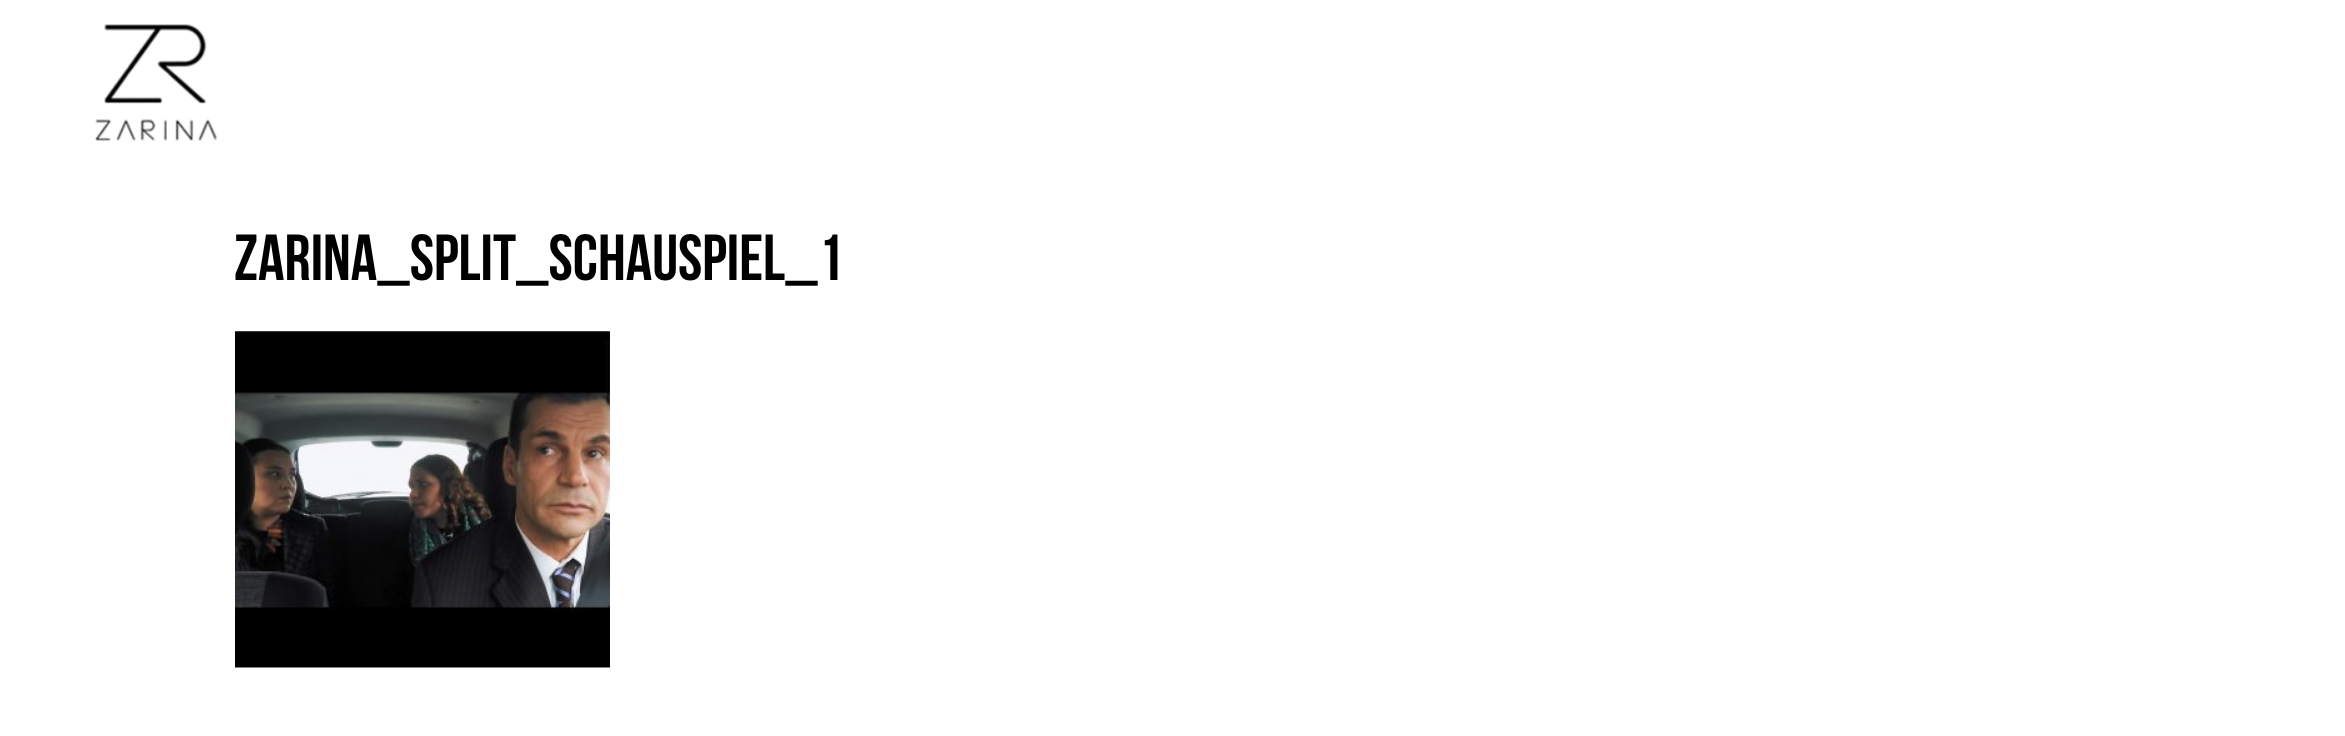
<!DOCTYPE html>
<meta charset="utf-8">
<style>body { margin: 0 } canvas { display: block }</style>
<canvas id="canvas" width="2345" height="736"></canvas>
<img id="img1" src="images/1.png" hidden>
<img id="img2" src="images/2.png" hidden>
<script>
window.onload = function () {
    const canvas = document.getElementById('canvas');
    const context = canvas.getContext('2d');
    context.miterLimit = 4;
    context.fontKerning = 'normal';

    context.fillStyle = 'rgb(255, 255, 255)';
    context.fillRect(0, 0, 2345, 736);
    context.drawImage(document.getElementById('img1'), 95, 24, 122, 117);
    context.drawImage(document.getElementById('img2'), 235, 331, 375, 337);
    context.font = 'bold 65px Bebas Neue';
    context.fillStyle = 'rgb(0, 0, 0)';
    context.fillText('ZARINA_Split_Schauspiel_1', 234, 280);
};
</script>
